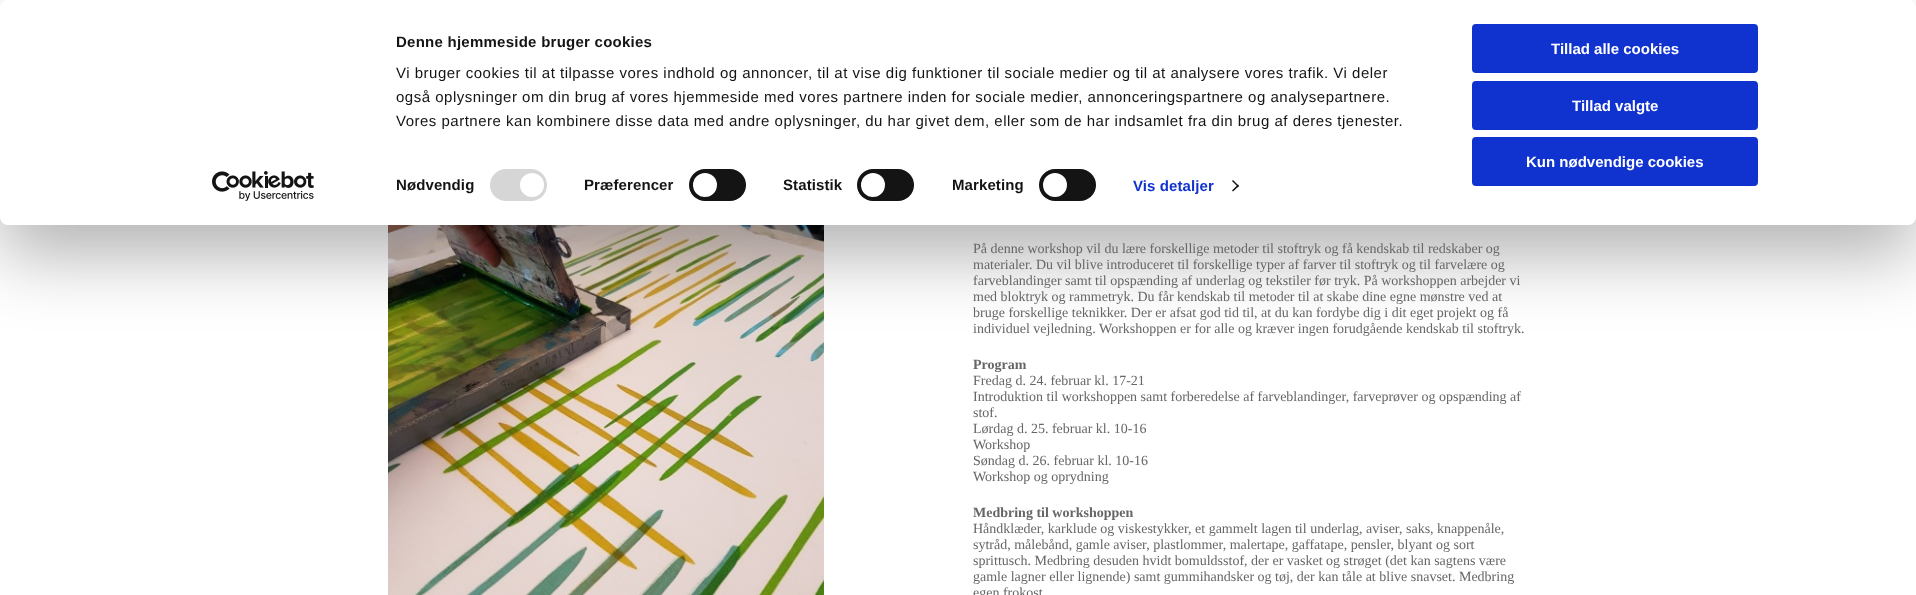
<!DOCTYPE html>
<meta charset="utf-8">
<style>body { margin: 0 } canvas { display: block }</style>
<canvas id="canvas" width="1916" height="595"></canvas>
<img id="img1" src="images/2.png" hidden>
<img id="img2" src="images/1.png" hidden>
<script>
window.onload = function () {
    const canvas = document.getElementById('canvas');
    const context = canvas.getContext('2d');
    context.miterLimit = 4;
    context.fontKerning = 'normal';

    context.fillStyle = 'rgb(255, 255, 255)';
    context.fillRect(0, 0, 1916, 595);
    context.drawImage(document.getElementById('img1'), 388, 225, 436, 370);
    context.fillStyle = 'rgba(0, 0, 0, 0.3)';
    context.filter = 'blur(35px)';
    context.beginPath();
    context.roundRect(0, 30, 1916, 225, 8);
    context.fill();
    context.filter = 'none';
    context.fillStyle = 'rgb(255, 255, 255)';
    context.beginPath();
    context.roundRect(0, 0, 1916, 225, 8);
    context.fill();
    context.fillStyle = 'rgb(214, 214, 214)';
    context.beginPath();
    context.roundRect(490, 169, 57, 32, 16);
    context.fill();
    context.fillStyle = 'rgb(255, 255, 255)';
    context.beginPath();
    context.arc(532, 185, 12, 0, 2 * Math.PI);
    context.fill();
    context.fillStyle = 'rgb(20, 20, 20)';
    context.beginPath();
    context.roundRect(689, 169, 57, 32, 16);
    context.fill();
    context.fillStyle = 'rgb(255, 255, 255)';
    context.beginPath();
    context.arc(705, 185, 12, 0, 2 * Math.PI);
    context.fill();
    context.fillStyle = 'rgb(20, 20, 20)';
    context.beginPath();
    context.roundRect(857, 169, 57, 32, 16);
    context.fill();
    context.fillStyle = 'rgb(255, 255, 255)';
    context.beginPath();
    context.arc(873, 185, 12, 0, 2 * Math.PI);
    context.fill();
    context.fillStyle = 'rgb(20, 20, 20)';
    context.beginPath();
    context.roundRect(1039, 169, 57, 32, 16);
    context.fill();
    context.fillStyle = 'rgb(255, 255, 255)';
    context.beginPath();
    context.arc(1055, 185, 12, 0, 2 * Math.PI);
    context.fill();
    context.fillStyle = 'rgb(20, 20, 20)';
    context.beginPath();
    context.moveTo(1233, 180);
    context.lineTo(1239, 186);
    context.lineTo(1238, 187);
    context.lineTo(1232, 181);
    context.closePath();
    context.fill();
    context.beginPath();
    context.moveTo(1238, 184.5);
    context.lineTo(1239, 186);
    context.lineTo(1233, 191.5);
    context.lineTo(1232, 190.5);
    context.closePath();
    context.fill();
    context.fillStyle = 'rgb(16, 50, 207)';
    context.beginPath();
    context.roundRect(1473, 25, 284, 47, 3);
    context.fill();
    context.strokeStyle = 'rgb(16, 50, 207)';
    context.lineWidth = 2;
    context.stroke();
    context.beginPath();
    context.roundRect(1473, 82, 284, 47, 3);
    context.fill();
    context.stroke();
    context.beginPath();
    context.roundRect(1473, 138, 284, 47, 3);
    context.fill();
    context.stroke();
    context.drawImage(document.getElementById('img2'), 212, 171, 102, 30);
    context.letterSpacing = '0.25px';
    context.font = 'bold 15px Liberation Sans';
    context.fillStyle = 'rgb(20, 20, 20)';
    context.fillText('Denne hjemmeside bruger cookies', 396, 47);
    context.letterSpacing = '0.5px';
    context.font = '15px Liberation Sans';
    context.fillText('Vi bruger cookies til at tilpasse vores indhold og annoncer, til at vise dig funktioner til sociale medier og til at analysere vores trafik. Vi deler', 396, 78);
    context.fillText('også oplysninger om din brug af vores hjemmeside med vores partnere inden for sociale medier, annonceringspartnere og analysepartnere.', 396, 102);
    context.fillText('Vores partnere kan kombinere disse data med andre oplysninger, du har givet dem, eller som de har indsamlet fra din brug af deres tjenester.', 396, 126);
    context.letterSpacing = '0.1px';
    context.font = 'bold 15px Liberation Sans';
    context.fillText('Nødvendig', 396, 190);
    context.fillText('Præferencer', 584, 190);
    context.fillText('Statistik', 783, 190);
    context.fillText('Marketing', 952, 190);
    context.fillStyle = 'rgb(16, 50, 207)';
    context.fillText('Vis detaljer', 1133, 191);
    context.letterSpacing = '0px';
    context.fillStyle = 'rgb(255, 255, 255)';
    context.fillText('Tillad alle cookies', 1551, 54);
    context.fillText('Tillad valgte', 1572, 111);
    context.fillText('Kun nødvendige cookies', 1526, 167);
    context.font = '14px Liberation Serif';
    context.fillStyle = 'rgb(102, 102, 102)';
    context.fillText('På denne workshop vil du lære forskellige metoder til stoftryk og få kendskab til redskaber og', 973, 253);
    context.fillText('materialer. Du vil blive introduceret til forskellige typer af farver til stoftryk og til farvelære og', 973, 269);
    context.fillText('farveblandinger samt til opspænding af underlag og tekstiler før tryk. På workshoppen arbejder vi', 973, 285);
    context.fillText('med bloktryk og rammetryk. Du får kendskab til metoder til at skabe dine egne mønstre ved at', 973, 301);
    context.fillText('bruge forskellige teknikker. Der er afsat god tid til, at du kan fordybe dig i dit eget projekt og få', 973, 317);
    context.fillText('individuel vejledning. Workshoppen er for alle og kræver ingen forudgående kendskab til stoftryk.', 973, 333);
    context.font = 'bold 14px Liberation Serif';
    context.fillText('Program', 973, 369);
    context.font = '14px Liberation Serif';
    context.fillText('Fredag d. 24. februar kl. 17-21', 973, 385);
    context.fillText('Introduktion til workshoppen samt forberedelse af farveblandinger, farveprøver og opspænding af', 973, 401);
    context.fillText('stof.', 973, 417);
    context.fillText('Lørdag d. 25. februar kl. 10-16', 973, 433);
    context.fillText('Workshop', 973, 449);
    context.fillText('Søndag d. 26. februar kl. 10-16', 973, 465);
    context.fillText('Workshop og oprydning', 973, 481);
    context.font = 'bold 14px Liberation Serif';
    context.fillText('Medbring til workshoppen', 973, 517);
    context.font = '14px Liberation Serif';
    context.fillText('Håndklæder, karklude og viskestykker, et gammelt lagen til underlag, aviser, saks, knappenåle,', 973, 533);
    context.fillText('sytråd, målebånd, gamle aviser, plastlommer, malertape, gaffatape, pensler, blyant og sort', 973, 549);
    context.fillText('sprittusch. Medbring desuden hvidt bomuldsstof, der er vasket og strøget (det kan sagtens være', 973, 565);
    context.fillText('gamle lagner eller lignende) samt gummihandsker og tøj, der kan tåle at blive snavset. Medbring', 973, 581);
    context.fillText('egen frokost', 973, 597);
};
</script>
